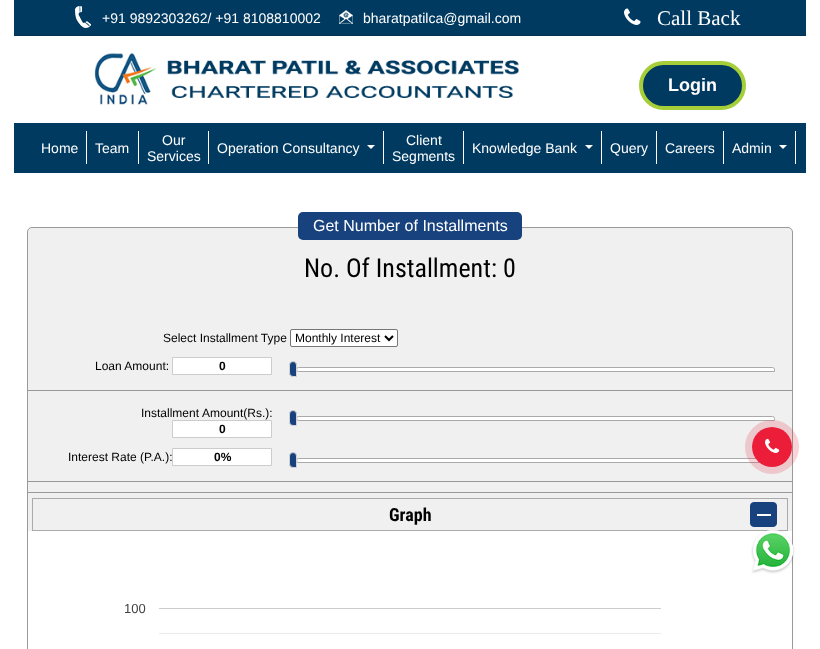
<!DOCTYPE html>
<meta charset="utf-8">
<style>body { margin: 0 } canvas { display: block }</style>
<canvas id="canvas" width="820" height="649"></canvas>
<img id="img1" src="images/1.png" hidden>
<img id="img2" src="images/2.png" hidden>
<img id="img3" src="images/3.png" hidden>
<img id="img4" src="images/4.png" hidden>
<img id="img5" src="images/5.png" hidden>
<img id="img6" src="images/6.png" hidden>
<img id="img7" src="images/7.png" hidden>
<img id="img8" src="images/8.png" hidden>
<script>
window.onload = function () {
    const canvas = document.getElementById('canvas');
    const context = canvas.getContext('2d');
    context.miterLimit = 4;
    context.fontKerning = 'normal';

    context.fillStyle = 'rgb(255, 255, 255)';
    context.fillRect(0, 0, 820, 649);
    context.fillStyle = 'rgb(0, 58, 96)';
    context.fillRect(14, 0, 792, 35);
    context.fillStyle = 'rgb(2, 48, 79)';
    context.fillRect(14, 35, 792, 1);
    context.drawImage(document.getElementById('img1'), 75, 6, 16, 22);
    context.drawImage(document.getElementById('img2'), 339, 10, 14, 14);
    context.drawImage(document.getElementById('img3'), 624, 8, 17, 17);
    context.drawImage(document.getElementById('img4'), 94, 52, 425, 53);
    context.fillStyle = 'rgb(0, 58, 96)';
    context.beginPath();
    context.roundRect(641, 63, 103, 45, 22.5);
    context.fill();
    context.strokeStyle = 'rgb(166, 206, 57)';
    context.lineWidth = 4;
    context.stroke();
    context.fillRect(14, 123, 792, 50);
    context.fillStyle = 'rgb(255, 255, 255)';
    context.fillRect(86, 131, 1, 33);
    context.fillRect(138, 131, 1, 33);
    context.fillRect(208, 131, 1, 33);
    context.fillRect(383, 131, 1, 33);
    context.beginPath();
    context.moveTo(367, 145);
    context.lineTo(375, 145);
    context.lineTo(371, 149);
    context.closePath();
    context.fill();
    context.fillRect(463, 131, 1, 33);
    context.fillRect(601, 131, 1, 33);
    context.beginPath();
    context.moveTo(585, 145);
    context.lineTo(593, 145);
    context.lineTo(589, 149);
    context.closePath();
    context.fill();
    context.fillRect(656, 131, 1, 33);
    context.fillRect(723, 131, 1, 33);
    context.fillRect(795, 131, 1, 33);
    context.beginPath();
    context.moveTo(779, 145);
    context.lineTo(787, 145);
    context.lineTo(783, 149);
    context.closePath();
    context.fill();
    context.fillStyle = 'rgb(240, 240, 240)';
    context.beginPath();
    context.roundRect(27.5, 227.5, 765, 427, 4.5);
    context.fill();
    context.strokeStyle = 'rgb(153, 153, 153)';
    context.lineWidth = 1;
    context.stroke();
    context.fillStyle = 'rgb(24, 66, 125)';
    context.beginPath();
    context.roundRect(298, 212, 224, 28, 5);
    context.fill();
    context.fillStyle = 'rgb(153, 153, 153)';
    context.fillRect(28, 492, 764, 1);
    context.fillRect(28, 390, 764, 1);
    context.fillStyle = 'rgb(255, 255, 255)';
    context.beginPath();
    context.roundRect(290.5, 329.5, 107, 17, 1.5);
    context.fill();
    context.strokeStyle = 'rgb(118, 118, 118)';
    context.stroke();
    context.beginPath();
    context.moveTo(385, 336);
    context.lineTo(389, 340);
    context.lineTo(393, 336);
    context.strokeStyle = 'rgb(0, 0, 0)';
    context.lineWidth = 2;
    context.stroke();
    context.beginPath();
    context.rect(172.5, 357.5, 99, 17);
    context.fill();
    context.strokeStyle = 'rgb(204, 204, 204)';
    context.lineWidth = 1;
    context.stroke();
    context.beginPath();
    context.roundRect(296.5, 367.5, 478, 4, [2, 2, 0, 2]);
    context.fill();
    context.strokeStyle = 'rgb(170, 170, 170)';
    context.stroke();
    context.fillStyle = 'rgb(24, 66, 125)';
    context.beginPath();
    context.roundRect(289.5, 361.5, 7, 15, [3.5, 3.5, 0, 3.5]);
    context.fill();
    context.strokeStyle = 'rgb(211, 211, 211)';
    context.stroke();
    context.fillStyle = 'rgb(153, 153, 153)';
    context.fillRect(28, 481, 764, 1);
    context.fillStyle = 'rgb(255, 255, 255)';
    context.beginPath();
    context.rect(172.5, 420.5, 99, 17);
    context.fill();
    context.strokeStyle = 'rgb(204, 204, 204)';
    context.stroke();
    context.beginPath();
    context.roundRect(296.5, 416.5, 478, 4, [2, 2, 0, 2]);
    context.fill();
    context.strokeStyle = 'rgb(170, 170, 170)';
    context.stroke();
    context.fillStyle = 'rgb(24, 66, 125)';
    context.beginPath();
    context.roundRect(289.5, 410.5, 7, 15, [3.5, 3.5, 0, 3.5]);
    context.fill();
    context.strokeStyle = 'rgb(211, 211, 211)';
    context.stroke();
    context.fillStyle = 'rgb(255, 255, 255)';
    context.beginPath();
    context.rect(172.5, 448.5, 99, 17);
    context.fill();
    context.strokeStyle = 'rgb(204, 204, 204)';
    context.stroke();
    context.beginPath();
    context.roundRect(296.5, 458.5, 478, 4, [2, 2, 0, 2]);
    context.fill();
    context.strokeStyle = 'rgb(170, 170, 170)';
    context.stroke();
    context.fillStyle = 'rgb(24, 66, 125)';
    context.beginPath();
    context.roundRect(289.5, 452.5, 7, 15, [3.5, 3.5, 0, 3.5]);
    context.fill();
    context.strokeStyle = 'rgb(211, 211, 211)';
    context.stroke();
    context.drawImage(document.getElementById('img5'), 750, 502, 27, 25);
    context.strokeStyle = 'rgb(170, 170, 170)';
    context.strokeRect(32.5, 498.5, 755, 32);
    context.drawImage(document.getElementById('img6'), 28, 531, 764, 118);
    context.beginPath();
    context.arc(772, 447, 23.5, 0, 2 * Math.PI);
    context.strokeStyle = 'rgba(220, 53, 69, 0.21)';
    context.lineWidth = 7;
    context.stroke();
    context.fillStyle = 'rgb(235, 29, 57)';
    context.beginPath();
    context.arc(772, 447, 20, 0, 2 * Math.PI);
    context.fill();
    context.drawImage(document.getElementById('img7'), 765, 438, 15, 15);
    context.drawImage(document.getElementById('img8'), 751, 530, 44, 44);
    context.font = '14px Liberation Sans';
    context.fillStyle = 'rgb(255, 255, 255)';
    context.fillText('+91 9892303262/ +91 8108810002', 102, 23);
    context.fillText('bharatpatilca@gmail.com', 363, 23);
    context.font = '21px Liberation Serif';
    context.fillText('Call Back', 657, 25);
    context.font = 'bold 18px Liberation Sans';
    context.fillText('Login', 668, 91);
    context.font = '14px Liberation Sans';
    context.fillText('Home', 41, 153);
    context.fillText('Team', 95, 153);
    context.fillText('Our', 162, 145);
    context.fillText('Services', 147, 161);
    context.fillText('Operation Consultancy', 217, 153);
    context.fillText('Client', 406, 145);
    context.fillText('Segments', 392, 161);
    context.fillText('Knowledge Bank', 472, 153);
    context.fillText('Query', 610, 153);
    context.fillText('Careers', 665, 153);
    context.fillText('Admin', 732, 153);
    context.font = '16px Liberation Sans';
    context.fillText('Get Number of Installments', 313, 231);
    context.font = '26px Roboto Condensed';
    context.fillStyle = 'rgb(0, 0, 0)';
    context.fillText('No. Of Installment: 0', 304, 277);
    context.font = '12px Liberation Sans';
    context.fillText('Select Installment Type', 163, 342);
    context.fillText('Monthly Interest', 295, 342);
    context.fillText('Loan Amount:', 95, 370);
    context.font = 'bold 12px Liberation Sans';
    context.fillText('0', 219, 370);
    context.font = '12px Liberation Sans';
    context.fillText('Installment', 141, 417);
    context.fillText('Amount(Rs.):', 202, 417);
    context.font = 'bold 12px Liberation Sans';
    context.fillText('0', 219, 433);
    context.font = '12px Liberation Sans';
    context.fillText('Interest Rate (P.A.):', 68, 461);
    context.font = 'bold 12px Liberation Sans';
    context.fillText('0%', 214, 461);
    context.font = 'bold 18px Roboto Condensed';
    context.fillText('Graph', 389, 521);
    context.font = '13px Liberation Sans';
    context.fillStyle = 'rgb(68, 68, 68)';
    context.fillText('100', 124, 613);
};
</script>
